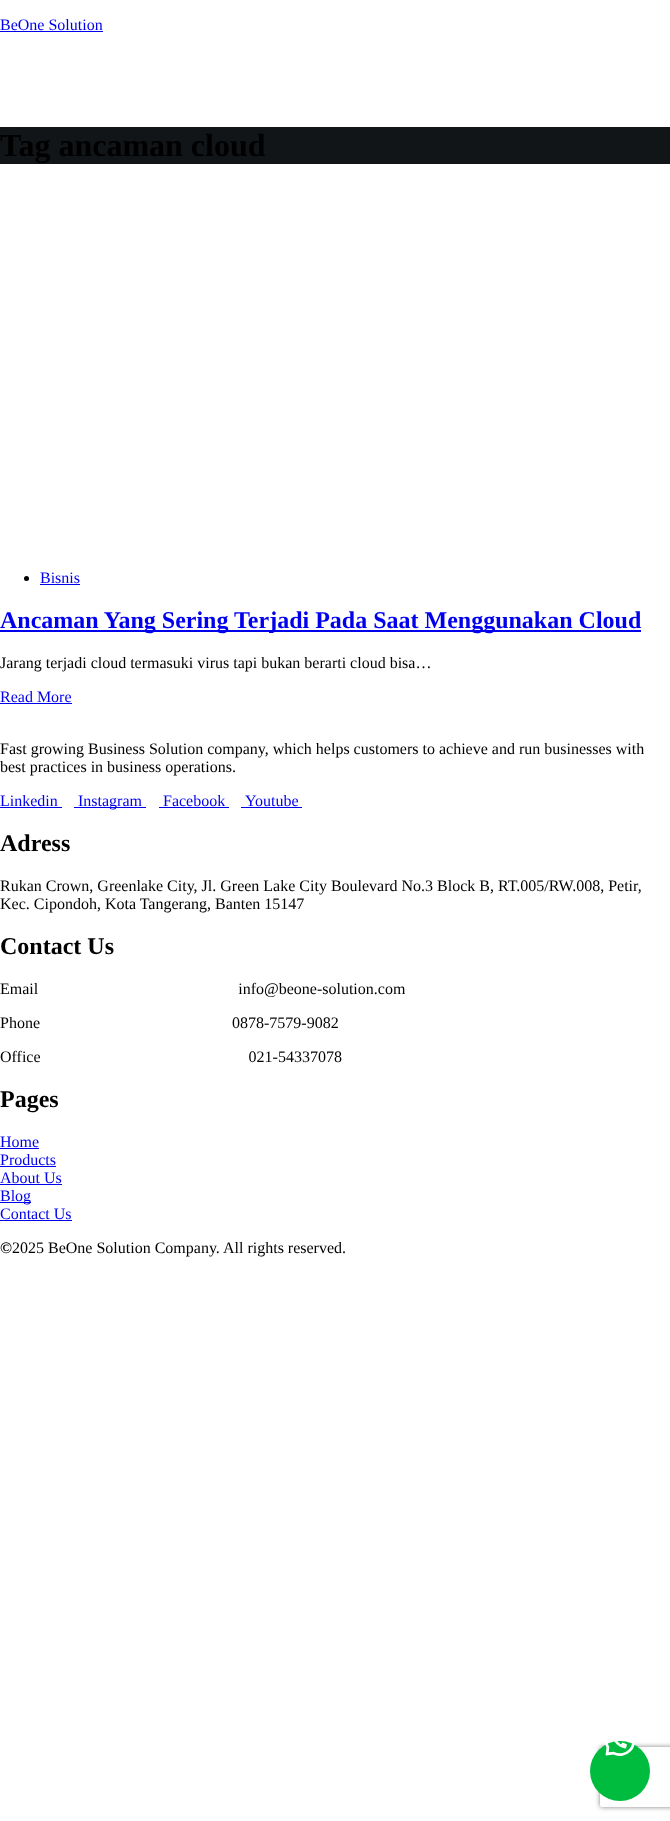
<!DOCTYPE html>
<meta charset="utf-8">
<style>body { margin: 0 } canvas { display: block }</style>
<canvas id="canvas" width="670" height="1821"></canvas>
<img id="img1" src="images/1.png" hidden>
<script>
window.onload = function () {
    const canvas = document.getElementById('canvas');
    const context = canvas.getContext('2d');
    context.miterLimit = 4;
    context.fontKerning = 'normal';

    context.fillStyle = 'rgb(255, 255, 255)';
    context.fillRect(0, 0, 670, 1821);
    context.fillStyle = 'rgb(0, 0, 238)';
    context.fillRect(0, 31, 103, 1);
    context.fillStyle = 'rgb(17, 21, 24)';
    context.fillRect(0, 127, 670, 37);
    context.fillStyle = 'rgb(0, 0, 0)';
    context.beginPath();
    context.arc(26.5, 578.5, 2.5, 0, 2 * Math.PI);
    context.fill();
    context.fillStyle = 'rgb(0, 0, 238)';
    context.fillRect(40, 584, 40, 1);
    context.fillRect(0, 630, 641, 2);
    context.fillRect(0, 703, 72, 1);
    context.fillRect(0, 807, 62, 1);
    context.fillRect(74, 807, 72, 1);
    context.fillRect(159, 807, 70, 1);
    context.fillRect(241, 807, 61, 1);
    context.fillRect(0, 1148, 39, 1);
    context.fillRect(0, 1166, 56, 1);
    context.fillRect(0, 1184, 62, 1);
    context.fillRect(0, 1202, 31, 1);
    context.fillRect(0, 1220, 72, 1);
    context.save();
    context.beginPath();
    context.moveTo(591, 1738);
    context.lineTo(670, 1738);
    context.lineTo(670, 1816);
    context.lineTo(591, 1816);
    context.closePath();
    context.moveTo(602, 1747);
    context.lineTo(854, 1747);
    context.bezierCurveTo(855, 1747, 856, 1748, 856, 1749);
    context.lineTo(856, 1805);
    context.bezierCurveTo(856, 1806, 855, 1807, 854, 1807);
    context.lineTo(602, 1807);
    context.bezierCurveTo(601, 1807, 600, 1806, 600, 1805);
    context.lineTo(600, 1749);
    context.bezierCurveTo(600, 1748, 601, 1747, 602, 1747);
    context.closePath();
    context.clip('evenodd');
    context.fillStyle = 'rgb(128, 128, 128)';
    context.filter = 'blur(2.5px)';
    context.beginPath();
    context.roundRect(600, 1747, 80, 60, 2);
    context.fill();
    context.filter = 'none';
    context.restore();
    context.fillStyle = 'rgb(0, 188, 62)';
    context.beginPath();
    context.arc(620, 1771, 30, 0, 2 * Math.PI);
    context.fill();
    context.drawImage(document.getElementById('img1'), 605, 1741, 30, 15);
    context.font = '16px Liberation Serif';
    context.fillStyle = 'rgb(0, 0, 238)';
    context.fillText('BeOne Solution', 0, 30);
    context.font = 'bold 32px Liberation Serif';
    context.fillStyle = 'rgb(0, 0, 0)';
    context.fillText('Tag ancaman cloud', 0, 156);
    context.font = '16px Liberation Serif';
    context.fillStyle = 'rgb(0, 0, 238)';
    context.fillText('Bisnis', 40, 583);
    context.font = 'bold 24px Liberation Serif';
    context.fillText('Ancaman Yang Sering Terjadi Pada Saat Menggunakan Cloud', 0, 628);
    context.font = '16px Liberation Serif';
    context.fillStyle = 'rgb(0, 0, 0)';
    context.fillText('Jarang terjadi cloud termasuki virus tapi bukan berarti cloud bisa…', 0, 668);
    context.fillStyle = 'rgb(0, 0, 238)';
    context.fillText('Read More', 0, 702);
    context.fillStyle = 'rgb(0, 0, 0)';
    context.fillText('Fast growing Business Solution company, which helps customers to achieve and run businesses with', 0, 754);
    context.fillText('best practices in business operations.', 0, 772);
    context.fillStyle = 'rgb(0, 0, 238)';
    context.fillText('Linkedin', 0, 806);
    context.fillText('Instagram', 78, 806);
    context.fillText('Facebook', 163, 806);
    context.fillText('Youtube', 245, 806);
    context.font = 'bold 24px Liberation Serif';
    context.fillStyle = 'rgb(0, 0, 0)';
    context.fillText('Adress', 0, 851);
    context.font = '16px Liberation Serif';
    context.fillText('Rukan Crown, Greenlake City, Jl. Green Lake City Boulevard No.3 Block B, RT.005/RW.008, Petir,', 0, 891);
    context.fillText('Kec. Cipondoh, Kota Tangerang, Banten 15147', 0, 909);
    context.font = 'bold 24px Liberation Serif';
    context.fillText('Contact Us', 0, 954);
    context.font = '16px Liberation Serif';
    context.fillText('Email                                                  info@beone-solution.com', 0, 994);
    context.fillText('Phone                                                0878-7579-9082', 0, 1028);
    context.fillText('Office                                                    021-54337078', 0, 1062);
    context.font = 'bold 24px Liberation Serif';
    context.fillText('Pages', 0, 1107);
    context.font = '16px Liberation Serif';
    context.fillStyle = 'rgb(0, 0, 238)';
    context.fillText('Home', 0, 1147);
    context.fillText('Products', 0, 1165);
    context.fillText('About Us', 0, 1183);
    context.fillText('Blog', 0, 1201);
    context.fillText('Contact Us', 0, 1219);
    context.font = 'bold 16px Liberation Serif';
    context.fillStyle = 'rgb(0, 0, 0)';
    context.fillText('©', 0, 1253);
    context.font = '16px Liberation Serif';
    context.fillText('2025 BeOne Solution Company. All rights reserved.', 12, 1253);
};
</script>
